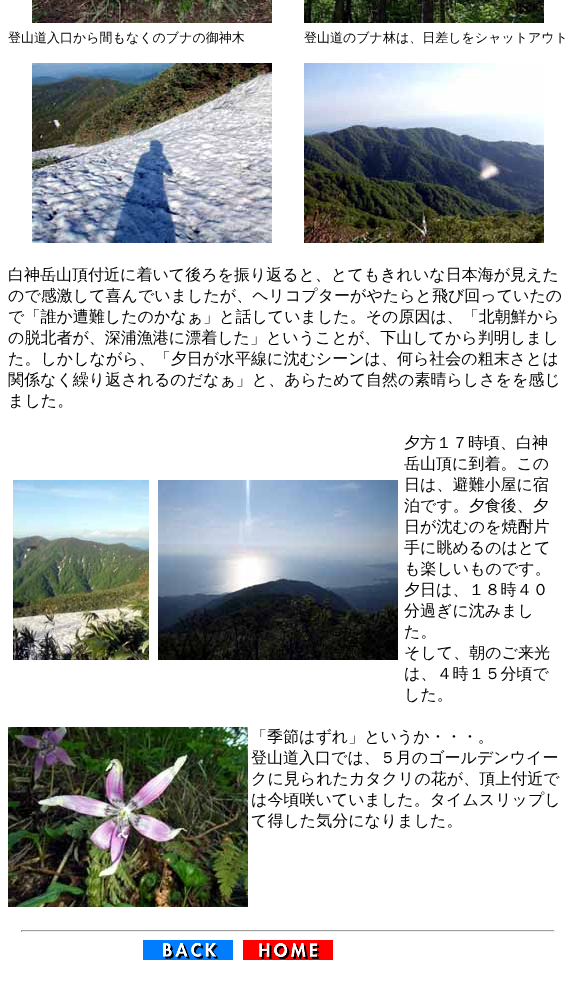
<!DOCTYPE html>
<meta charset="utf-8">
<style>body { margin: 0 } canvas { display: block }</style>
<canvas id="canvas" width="573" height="1005"></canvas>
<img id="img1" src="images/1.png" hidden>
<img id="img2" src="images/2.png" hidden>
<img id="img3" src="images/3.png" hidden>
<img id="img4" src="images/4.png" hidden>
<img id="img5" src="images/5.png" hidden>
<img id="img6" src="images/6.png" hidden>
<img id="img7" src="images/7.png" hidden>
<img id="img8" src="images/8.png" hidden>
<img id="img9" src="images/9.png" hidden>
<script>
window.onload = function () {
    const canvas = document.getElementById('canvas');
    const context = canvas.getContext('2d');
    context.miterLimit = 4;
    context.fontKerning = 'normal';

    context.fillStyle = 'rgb(255, 255, 255)';
    context.fillRect(0, 0, 573, 1005);
    context.drawImage(document.getElementById('img1'), 32, 0, 240, 23);
    context.drawImage(document.getElementById('img2'), 304, 0, 240, 23);
    context.drawImage(document.getElementById('img3'), 32, 63, 240, 180);
    context.drawImage(document.getElementById('img4'), 304, 63, 240, 180);
    context.drawImage(document.getElementById('img5'), 13, 480, 136, 180);
    context.drawImage(document.getElementById('img6'), 158, 480, 240, 180);
    context.drawImage(document.getElementById('img7'), 8, 727, 240, 180);
    context.fillStyle = 'rgb(159, 159, 159)';
    context.fillRect(21, 930, 534, 1);
    context.fillStyle = 'rgb(238, 238, 238)';
    context.fillRect(554, 930, 1, 2);
    context.fillRect(21, 931, 534, 1);
    context.fillStyle = 'rgb(159, 159, 159)';
    context.fillRect(21, 930, 1, 2);
    context.drawImage(document.getElementById('img8'), 143, 940, 90, 20);
    context.drawImage(document.getElementById('img9'), 243, 940, 90, 20);
    context.font = '500 13px WenQuanYi Zen Hei';
    context.fillStyle = 'rgb(0, 0, 0)';
    context.fillText('登山道入口から間もなくのブナの御神木', 8, 42);
    context.fillText('登山道のブナ林は、日差しをシャットアウト', 304, 42);
    context.font = '500 16px WenQuanYi Zen Hei';
    context.fillText('白神岳山頂付近に着いて後ろを振り返ると、とてもきれいな日本海が見えた', 8, 280);
    context.fillText('ので感激して喜んでいましたが、ヘリコプターがやたらと飛び回っていたの', 8, 301);
    context.fillText('で「誰か遭難したのかなぁ」と話していました。その原因は、「北朝鮮から', 8, 322);
    context.fillText('の脱北者が、深浦漁港に漂着した」ということが、下山してから判明しまし', 8, 343);
    context.fillText('た。しかしながら、「夕日が水平線に沈むシーンは、何ら社会の粗末さとは', 8, 364);
    context.fillText('関係なく繰り返されるのだなぁ」と、あらためて自然の素晴らしさをを感じ', 8, 385);
    context.fillText('ました。', 8, 406);
    context.fillText('夕方１７時頃、白神', 404, 448);
    context.fillText('岳山頂に到着。この', 404, 469);
    context.fillText('日は、避難小屋に宿', 404, 490);
    context.fillText('泊です。夕食後、夕', 404, 511);
    context.fillText('日が沈むのを焼酎片', 404, 532);
    context.fillText('手に眺めるのはとて', 404, 553);
    context.fillText('も楽しいものです。', 404, 574);
    context.fillText('夕日は、１８時４０', 404, 595);
    context.fillText('分過ぎに沈みまし', 404, 616);
    context.fillText('た。', 404, 637);
    context.fillText('そして、朝のご来光', 404, 658);
    context.fillText('は、４時１５分頃で', 404, 679);
    context.fillText('した。', 404, 700);
    context.fillText('「季節はずれ」というか・・・。', 251, 742);
    context.fillText('登山道入口では、５月のゴールデンウイー', 251, 763);
    context.fillText('クに見られたカタクリの花が、頂上付近で', 251, 784);
    context.fillText('は今頃咲いていました。タイムスリップし', 251, 805);
    context.fillText('て得した気分になりました。', 251, 826);
};
</script>
